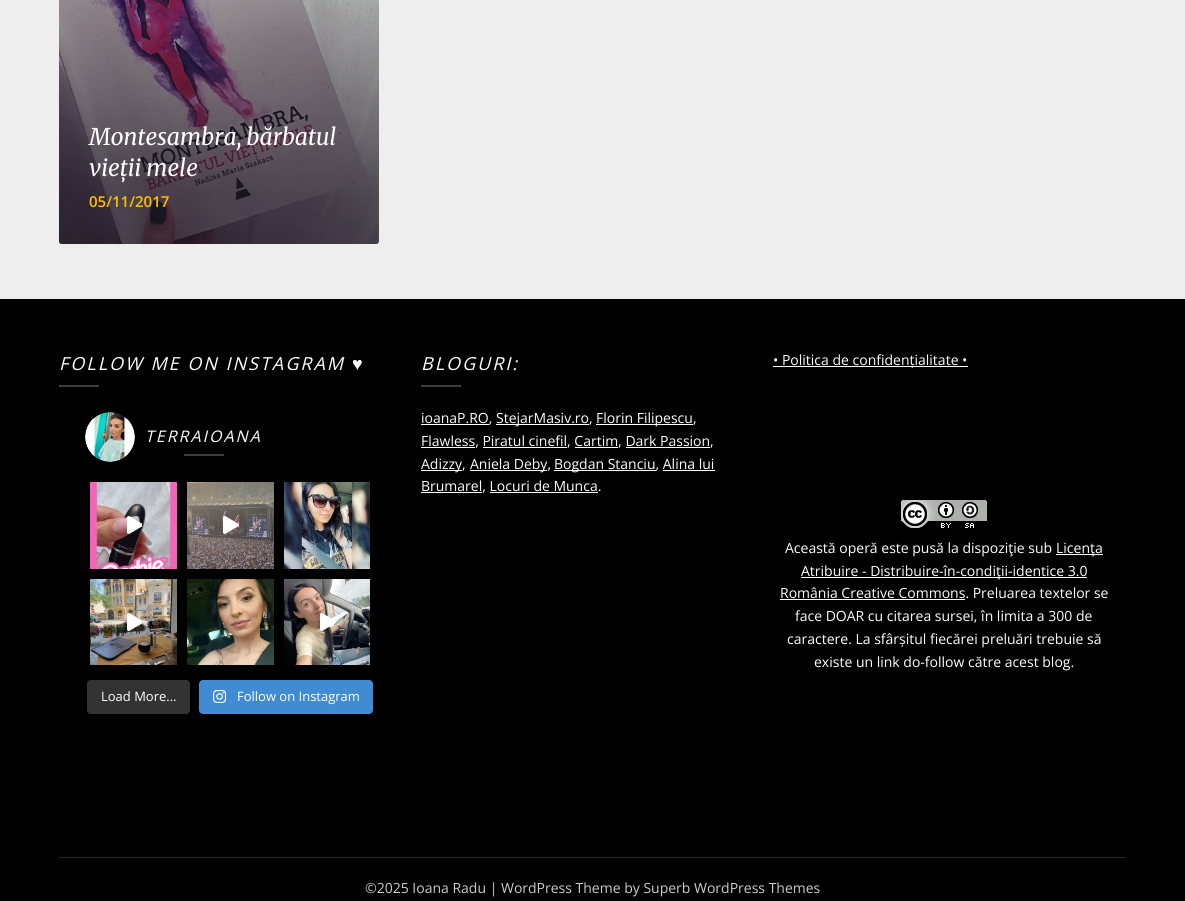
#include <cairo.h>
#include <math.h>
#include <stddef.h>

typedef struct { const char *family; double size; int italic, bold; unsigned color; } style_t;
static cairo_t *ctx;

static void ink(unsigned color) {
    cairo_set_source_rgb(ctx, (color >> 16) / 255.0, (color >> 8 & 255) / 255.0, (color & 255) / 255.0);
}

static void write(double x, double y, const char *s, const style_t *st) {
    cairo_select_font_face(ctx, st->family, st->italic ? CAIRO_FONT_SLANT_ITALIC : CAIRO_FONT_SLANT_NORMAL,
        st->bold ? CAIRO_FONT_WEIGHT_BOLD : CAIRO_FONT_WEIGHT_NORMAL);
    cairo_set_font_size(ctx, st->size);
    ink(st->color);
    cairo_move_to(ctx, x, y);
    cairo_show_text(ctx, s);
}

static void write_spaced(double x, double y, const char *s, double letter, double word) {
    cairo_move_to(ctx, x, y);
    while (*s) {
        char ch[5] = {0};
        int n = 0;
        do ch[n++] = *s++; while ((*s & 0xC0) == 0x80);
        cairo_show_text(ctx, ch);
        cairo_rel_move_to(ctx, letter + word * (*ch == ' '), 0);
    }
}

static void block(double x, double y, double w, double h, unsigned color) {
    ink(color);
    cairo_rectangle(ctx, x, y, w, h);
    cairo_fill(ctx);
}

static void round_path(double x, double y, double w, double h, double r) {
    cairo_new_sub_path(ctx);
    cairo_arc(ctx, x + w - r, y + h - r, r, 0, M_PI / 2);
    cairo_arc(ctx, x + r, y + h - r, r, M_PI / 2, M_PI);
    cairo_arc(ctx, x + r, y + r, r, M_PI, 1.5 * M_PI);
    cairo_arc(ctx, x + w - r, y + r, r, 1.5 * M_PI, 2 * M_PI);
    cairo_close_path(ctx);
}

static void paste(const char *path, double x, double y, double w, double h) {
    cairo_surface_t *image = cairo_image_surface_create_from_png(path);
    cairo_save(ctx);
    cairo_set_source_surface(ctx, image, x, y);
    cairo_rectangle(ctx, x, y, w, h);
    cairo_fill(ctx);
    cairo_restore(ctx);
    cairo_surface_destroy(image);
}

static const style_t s1 = {"Merriweather Light", 23, 1, 0, 0xffffff};
static const style_t s2 = {"Open Sans SemiBold", 15, 0, 0, 0xffbf00};
static const style_t s3 = {"Open Sans", 13, 0, 0, 0xffffff};
static const style_t s4 = {"Open Sans", 14, 0, 0, 0xffffff};
static const style_t s5 = {"Open Sans", 14, 0, 0, 0xcccccc};

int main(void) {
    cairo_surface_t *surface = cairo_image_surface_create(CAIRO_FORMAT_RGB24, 1185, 901);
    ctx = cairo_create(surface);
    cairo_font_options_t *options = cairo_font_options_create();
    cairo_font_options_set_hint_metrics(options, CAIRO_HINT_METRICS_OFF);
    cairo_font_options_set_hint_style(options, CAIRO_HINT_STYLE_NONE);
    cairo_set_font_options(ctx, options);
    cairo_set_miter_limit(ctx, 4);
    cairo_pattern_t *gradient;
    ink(0xeeeeee);
    cairo_paint(ctx);
    paste("pic1.png", 59, 0, 320, 244);
    gradient = cairo_pattern_create_linear(219, -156, 219, 244);
    cairo_pattern_add_color_stop_rgba(gradient, 0, 0.125, 0.118, 0.173, 0);
    cairo_pattern_add_color_stop_rgba(gradient, 0.88, 0.125, 0.118, 0.173, 0.64);
    cairo_pattern_add_color_stop_rgba(gradient, 0.89, 0.125, 0.118, 0.173, 0.65);
    cairo_set_source(ctx, gradient);
    cairo_pattern_destroy(gradient);
    round_path(59, -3, 320, 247, 3);
    cairo_fill(ctx);
    write(89, 145, "Montesambra, bărbatul", &s1);
    write(89, 176, "vieții mele", &s1);
    write(89, 207, "05/11/2017", &s2);
    block(0, 299, 1185, 602, 0x000000);
    cairo_select_font_face(ctx, "Open Sans", CAIRO_FONT_SLANT_ITALIC, CAIRO_FONT_WEIGHT_NORMAL);
    cairo_set_font_size(ctx, 18);
    ink(0xffffff);
    write_spaced(59, 370, "FOLLOW ME ON INSTAGRAM", 2, 0);
    cairo_select_font_face(ctx, "Liberation Serif", CAIRO_FONT_SLANT_ITALIC, CAIRO_FONT_WEIGHT_NORMAL);
    write_spaced(352, 370, "♥", 2, 0);
    block(59, 385, 40, 2, 0x3d3d3d);
    paste("pic2.png", 85, 412, 50, 50);
    cairo_select_font_face(ctx, "Open Sans", CAIRO_FONT_SLANT_ITALIC, CAIRO_FONT_WEIGHT_NORMAL);
    cairo_set_font_size(ctx, 16);
    ink(0xffffff);
    write_spaced(145, 442, "TERRAIOANA", 2, 0);
    block(184, 454, 40, 2, 0x3d3d3d);
    paste("pic3.png", 90, 482, 87, 87);
    paste("pic4.png", 127, 516, 15, 18);
    paste("pic5.png", 187, 482, 87, 87);
    paste("pic6.png", 223, 516, 16, 18);
    paste("pic7.png", 284, 482, 86, 87);
    paste("pic8.png", 90, 579, 87, 86);
    paste("pic9.png", 127, 613, 15, 18);
    paste("pic10.png", 187, 579, 87, 86);
    paste("pic11.png", 284, 579, 86, 86);
    paste("pic12.png", 320, 613, 16, 18);
    ink(0x333333);
    round_path(87, 680, 103, 34, 4);
    cairo_fill(ctx);
    write(101, 701, "Load More...", &s3);
    ink(0x408bd1);
    round_path(199, 680, 174, 34, 4);
    cairo_fill(ctx);
    paste("pic13.png", 213, 690, 13, 13);
    write(237, 701, "Follow on Instagram", &s3);
    cairo_select_font_face(ctx, "Open Sans", CAIRO_FONT_SLANT_ITALIC, CAIRO_FONT_WEIGHT_NORMAL);
    cairo_set_font_size(ctx, 18);
    write_spaced(421, 370, "BLOGURI:", 2, 0);
    block(421, 385, 40, 2, 0x3d3d3d);
    block(421, 424, 68, 1, 0xffffff);
    write(421, 423, "ioanaP.RO,", &s4);
    block(496, 424, 93, 1, 0xffffff);
    write(496, 423, "StejarMasiv.ro,", &s4);
    block(596, 424, 97, 1, 0xffffff);
    write(596, 423, "Florin Filipescu,", &s4);
    block(421, 447, 54, 1, 0xffffff);
    write(421, 446, "Flawless, Piratul cinefil, Cartim, Dark Passion,", &s4);
    block(483, 447, 84, 1, 0xffffff);
    block(575, 447, 43, 1, 0xffffff);
    block(626, 447, 84, 1, 0xffffff);
    block(421, 470, 41, 1, 0xffffff);
    write(421, 469, "Adizzy,", &s4);
    block(470, 470, 77, 1, 0xffffff);
    write(470, 469, "Aniela Deby,", &s4);
    block(554, 470, 102, 1, 0xffffff);
    write(554, 469, "Bogdan Stanciu, Alina lui", &s4);
    block(421, 492, 61, 1, 0xffffff);
    write(421, 491, "Brumarel, Locuri de Munca.", &s4);
    block(663, 470, 52, 1, 0xffffff);
    block(490, 492, 108, 1, 0xffffff);
    block(773, 366, 195, 1, 0xffffff);
    write(773, 365, "• Politica de confidențialitate •", &s4);
    paste("pic14.png", 900, 499, 87, 31);
    write(785, 553, "Această operă este pusă la dispoziţie sub", &s4);
    block(1056, 554, 47, 1, 0xffffff);
    write(1056, 553, "Licenţa", &s4);
    block(801, 577, 286, 1, 0xffffff);
    write(801, 576, "Atribuire - Distribuire-în-condiţii-identice 3.0", &s4);
    write(780, 598, "România Creative Commons. Preluarea textelor se", &s4);
    block(780, 599, 185, 1, 0xffffff);
    write(795, 621, "face DOAR cu citarea sursei, în limita a 300 de", &s4);
    write(787, 644, "caractere. La sfârșitul fiecărei preluări trebuie să", &s4);
    write(814, 667, "existe un link do-follow către acest blog.", &s4);
    block(59, 857, 1067, 1, 0x292929);
    write(365, 893, "©2025 Ioana Radu | WordPress Theme by Superb WordPress Themes", &s5);
    cairo_surface_write_to_png(surface, "screenshot.png");
    cairo_font_options_destroy(options);
    cairo_destroy(ctx);
    cairo_surface_destroy(surface);
    return 0;
}
